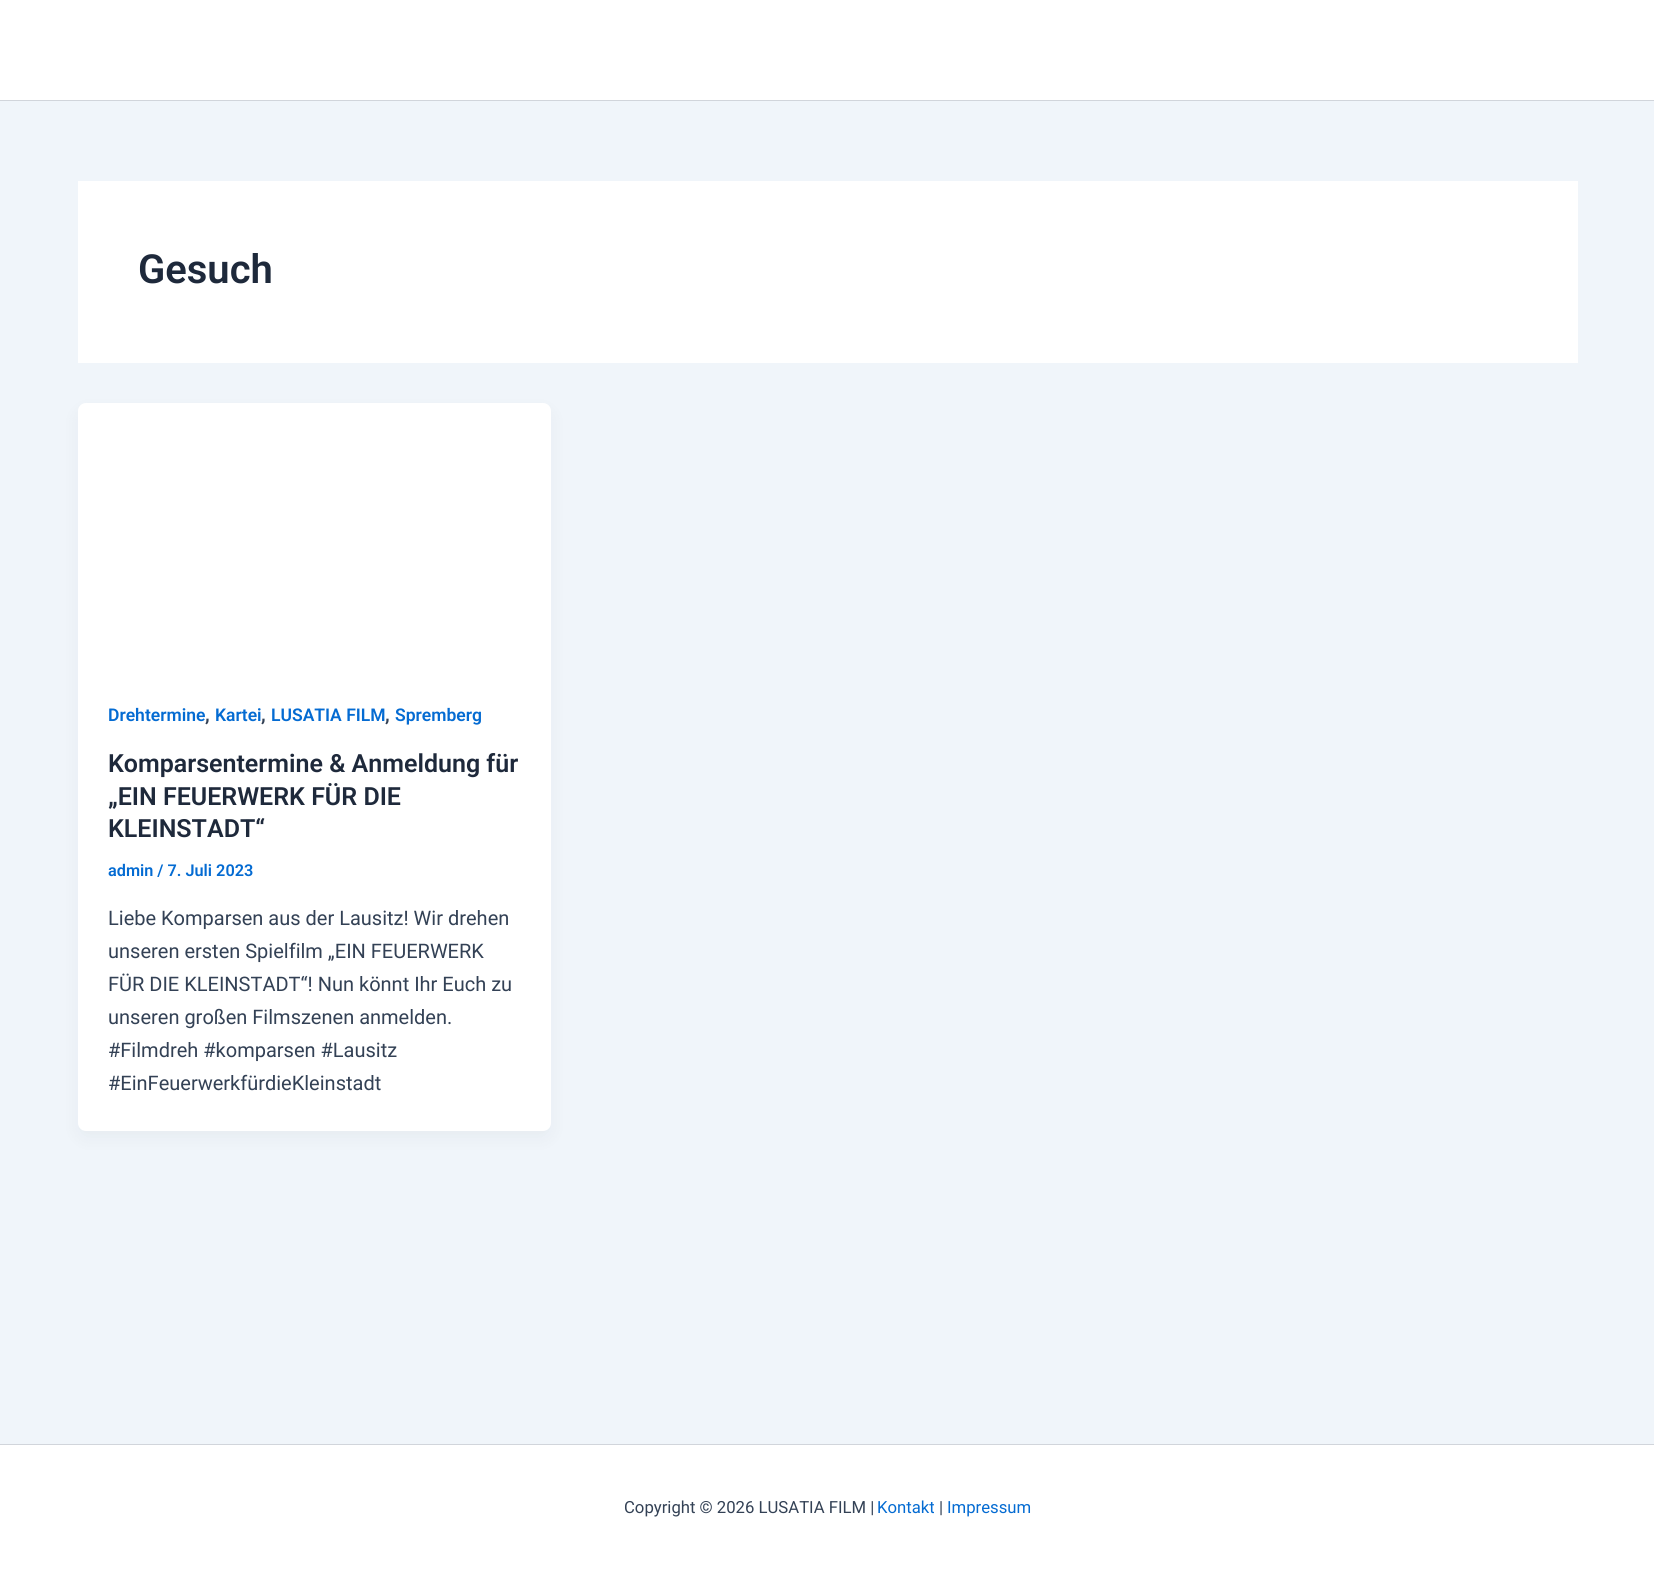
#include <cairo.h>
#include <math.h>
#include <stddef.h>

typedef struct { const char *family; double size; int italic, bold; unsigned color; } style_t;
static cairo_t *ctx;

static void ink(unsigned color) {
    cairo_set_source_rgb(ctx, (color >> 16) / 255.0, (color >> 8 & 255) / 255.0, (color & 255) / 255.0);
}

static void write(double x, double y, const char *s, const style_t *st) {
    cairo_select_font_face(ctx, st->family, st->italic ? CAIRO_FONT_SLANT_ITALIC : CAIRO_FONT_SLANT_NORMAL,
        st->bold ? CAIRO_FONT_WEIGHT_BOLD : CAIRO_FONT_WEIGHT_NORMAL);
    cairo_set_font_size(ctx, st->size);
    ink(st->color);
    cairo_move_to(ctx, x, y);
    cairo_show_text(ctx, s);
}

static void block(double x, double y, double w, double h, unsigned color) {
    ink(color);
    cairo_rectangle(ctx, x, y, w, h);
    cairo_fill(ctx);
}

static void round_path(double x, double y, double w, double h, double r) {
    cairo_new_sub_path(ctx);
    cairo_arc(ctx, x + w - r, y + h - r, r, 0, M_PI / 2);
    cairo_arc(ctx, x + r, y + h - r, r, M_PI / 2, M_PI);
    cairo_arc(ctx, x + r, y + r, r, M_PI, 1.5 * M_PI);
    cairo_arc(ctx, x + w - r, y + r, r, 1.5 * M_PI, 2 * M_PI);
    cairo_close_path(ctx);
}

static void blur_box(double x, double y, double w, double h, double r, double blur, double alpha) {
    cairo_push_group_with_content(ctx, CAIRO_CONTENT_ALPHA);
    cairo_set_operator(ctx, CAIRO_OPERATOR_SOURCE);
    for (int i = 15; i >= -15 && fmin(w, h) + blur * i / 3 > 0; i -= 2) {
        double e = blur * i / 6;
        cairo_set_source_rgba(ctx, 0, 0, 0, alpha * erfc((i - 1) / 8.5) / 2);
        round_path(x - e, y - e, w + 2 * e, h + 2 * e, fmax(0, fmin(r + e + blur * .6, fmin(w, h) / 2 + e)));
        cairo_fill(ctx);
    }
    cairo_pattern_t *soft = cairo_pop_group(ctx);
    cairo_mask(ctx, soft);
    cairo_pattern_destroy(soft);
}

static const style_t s1 = {"Roboto SemiBold", 40, 0, 0, 0x1e293b};
static const style_t s2 = {"Roboto SemiBold", 17.5, 0, 0, 0x046bd2};
static const style_t s3 = {"Roboto SemiBold", 20, 0, 0, 0x334155};
static const style_t s4 = {"Roboto SemiBold", 25, 0, 0, 0x1e293b};
static const style_t s5 = {"Roboto SemiBold", 16.25, 0, 0, 0x046bd2};
static const style_t s6 = {"Roboto", 20, 0, 0, 0x334155};
static const style_t s7 = {"Roboto", 16.7, 0, 0, 0x334155};
static const style_t s8 = {"Roboto", 16.7, 0, 0, 0x046bd2};

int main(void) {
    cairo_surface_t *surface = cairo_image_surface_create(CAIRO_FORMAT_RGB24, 1654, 1569);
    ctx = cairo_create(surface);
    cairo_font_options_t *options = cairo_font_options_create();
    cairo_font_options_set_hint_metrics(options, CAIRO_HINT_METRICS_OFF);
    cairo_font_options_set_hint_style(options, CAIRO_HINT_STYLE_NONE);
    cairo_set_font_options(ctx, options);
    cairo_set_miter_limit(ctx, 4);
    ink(0xf0f5fa);
    cairo_paint(ctx);
    block(0, 0, 1654, 100, 0xffffff);
    block(0, 100, 1654, 1, 0xd1d5db);
    block(78, 181, 1500, 182, 0xffffff);
    write(138, 283, "Gesuch", &s1);
    ink(0x101828);
    blur_box(80, 413, 469, 723, 5, 9.5, 0.05);
    ink(0xffffff);
    round_path(78, 403, 473, 728, 8);
    cairo_fill(ctx);
    write(108, 721, "Drehtermine", &s2);
    write(205, 721, ",", &s3);
    write(215, 721, "Kartei", &s2);
    write(261, 721, ",", &s3);
    write(271, 721, "LUSATIA FILM", &s2);
    write(385, 721, ",", &s3);
    write(395, 721, "Spremberg", &s2);
    write(108, 772, "Komparsentermine & Anmeldung für", &s4);
    write(108, 805, "„EIN FEUERWERK FÜR DIE", &s4);
    write(108, 837, "KLEINSTADT“", &s4);
    write(108, 876, "admin / 7. Juli 2023", &s5);
    write(108, 925, "Liebe Komparsen aus der Lausitz! Wir drehen", &s6);
    write(108, 958, "unseren ersten Spielfilm „EIN FEUERWERK", &s6);
    write(108, 991, "FÜR DIE KLEINSTADT“! Nun könnt Ihr Euch zu", &s6);
    write(108, 1024, "unseren großen Filmszenen anmelden.", &s6);
    write(108, 1057, "#Filmdreh #komparsen #Lausitz", &s6);
    write(108, 1090, "#EinFeuerwerkfürdieKleinstadt", &s6);
    block(0, 1445, 1654, 124, 0xffffff);
    block(0, 1444, 1654, 1, 0xd1d5db);
    write(624, 1513, "Copyright © 2026 LUSATIA FILM |", &s7);
    write(877, 1513, "Kontakt", &s8);
    write(939, 1513, "|", &s7);
    write(947, 1513, "Impressum", &s8);
    cairo_surface_write_to_png(surface, "screenshot.png");
    cairo_font_options_destroy(options);
    cairo_destroy(ctx);
    cairo_surface_destroy(surface);
    return 0;
}
